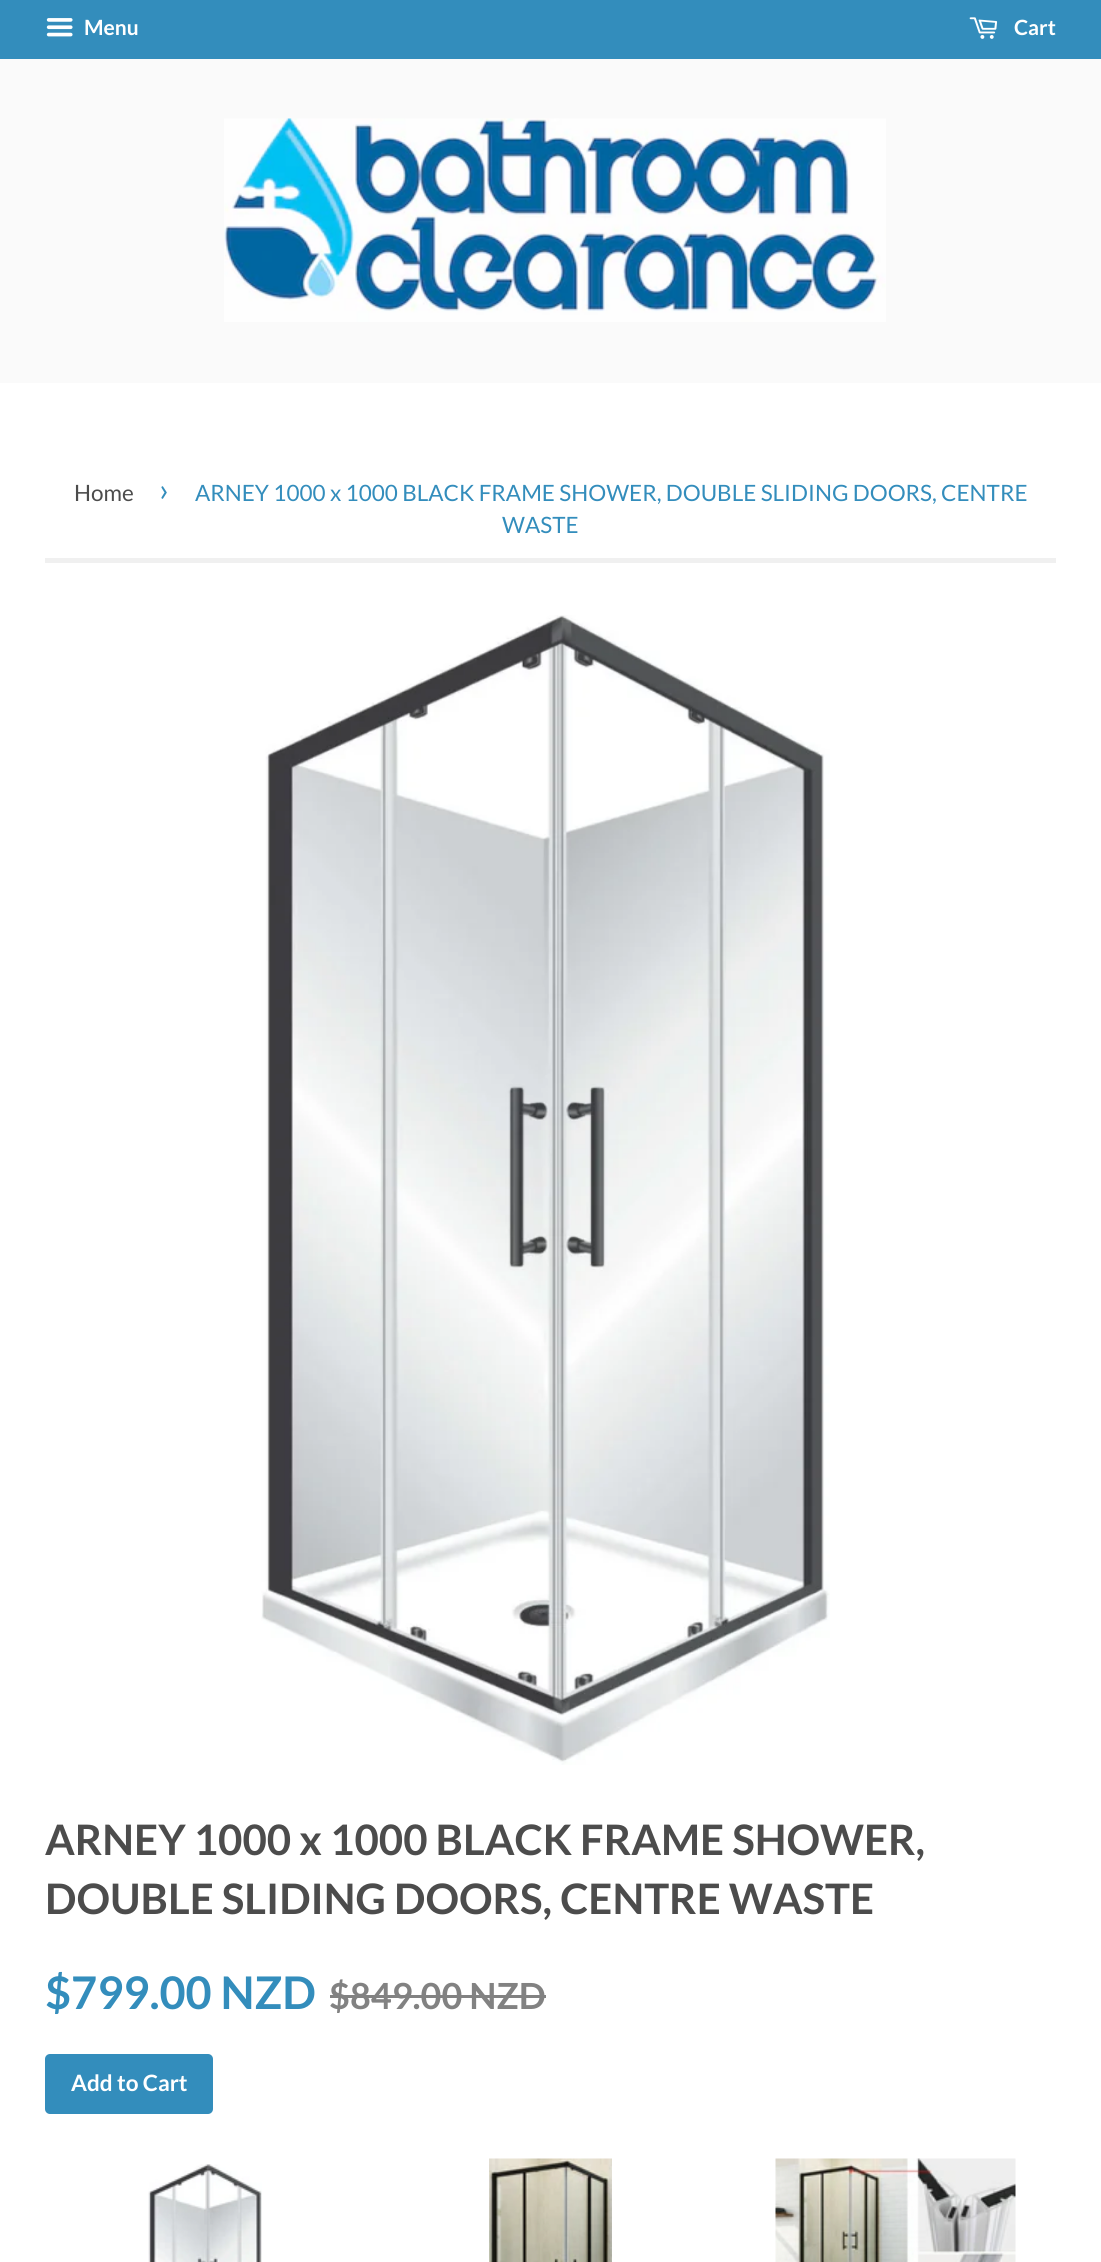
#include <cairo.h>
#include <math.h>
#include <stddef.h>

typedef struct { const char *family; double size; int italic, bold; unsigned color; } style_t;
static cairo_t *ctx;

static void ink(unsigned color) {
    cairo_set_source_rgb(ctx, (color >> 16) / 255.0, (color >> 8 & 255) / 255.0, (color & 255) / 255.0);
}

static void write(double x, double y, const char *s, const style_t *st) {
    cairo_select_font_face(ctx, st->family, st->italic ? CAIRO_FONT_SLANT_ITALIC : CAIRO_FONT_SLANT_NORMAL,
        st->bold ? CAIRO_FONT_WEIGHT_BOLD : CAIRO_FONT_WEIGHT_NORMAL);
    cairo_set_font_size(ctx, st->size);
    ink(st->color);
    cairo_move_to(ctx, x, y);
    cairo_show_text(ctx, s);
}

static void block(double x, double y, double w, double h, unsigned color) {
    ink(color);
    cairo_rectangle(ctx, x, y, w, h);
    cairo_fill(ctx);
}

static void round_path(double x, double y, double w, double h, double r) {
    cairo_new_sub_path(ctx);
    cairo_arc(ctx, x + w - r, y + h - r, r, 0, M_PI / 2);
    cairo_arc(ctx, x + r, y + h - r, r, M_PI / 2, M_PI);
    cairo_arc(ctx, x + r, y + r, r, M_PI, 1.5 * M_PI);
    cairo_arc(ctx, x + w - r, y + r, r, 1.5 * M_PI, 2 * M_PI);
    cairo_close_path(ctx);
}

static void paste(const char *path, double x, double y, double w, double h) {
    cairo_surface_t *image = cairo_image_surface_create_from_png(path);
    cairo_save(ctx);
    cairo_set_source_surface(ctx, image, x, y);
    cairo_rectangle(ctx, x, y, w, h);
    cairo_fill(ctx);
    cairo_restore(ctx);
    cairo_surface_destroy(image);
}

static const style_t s1 = {"Lato", 21, 0, 1, 0xffffff};
static const style_t s2 = {"Lato", 22.5, 0, 0, 0x4c4c4c};
static const style_t s3 = {"Lato", 32, 0, 0, 0x338dbc};
static const style_t s4 = {"Lato", 22.5, 0, 0, 0x338dbc};
static const style_t s5 = {"Lato", 42, 0, 1, 0x4c4c4c};
static const style_t s6 = {"Lato", 45, 0, 1, 0x338dbc};
static const style_t s7 = {"Lato", 36, 0, 1, 0x828282};
static const style_t s8 = {"Lato", 22.5, 0, 1, 0xffffff};

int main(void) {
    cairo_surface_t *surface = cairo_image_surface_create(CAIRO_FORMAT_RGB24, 1101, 2262);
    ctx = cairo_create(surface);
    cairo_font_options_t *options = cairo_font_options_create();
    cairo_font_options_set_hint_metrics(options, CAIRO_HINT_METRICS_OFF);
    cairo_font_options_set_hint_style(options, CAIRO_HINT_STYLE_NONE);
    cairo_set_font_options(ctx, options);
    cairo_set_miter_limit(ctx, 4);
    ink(0xffffff);
    cairo_paint(ctx);
    block(0, 0, 1101, 59, 0x338dbc);
    paste("pic1.png", 46, 18, 27, 19);
    write(84, 35, "Menu", &s1);
    paste("pic2.png", 969, 17, 29, 22);
    write(1014, 35, "Cart", &s1);
    block(0, 59, 1101, 324, 0xfafafa);
    paste("pic3.png", 224, 118, 662, 204);
    block(45, 558, 1011, 5, 0xf0f0f0);
    write(74, 501, "Home", &s2);
    write(159, 501, "›", &s3);
    write(195, 501, "ARNEY 1000 x 1000 BLACK FRAME SHOWER, DOUBLE SLIDING DOORS, CENTRE", &s4);
    write(502, 533, "WASTE", &s4);
    paste("pic4.png", 261, 615, 569, 1150);
    write(45, 1855, "ARNEY 1000 x 1000 BLACK FRAME SHOWER,", &s5);
    write(45, 1914, "DOUBLE SLIDING DOORS, CENTRE WASTE", &s5);
    write(45, 2009, "$799.00 NZD", &s6);
    write(329, 2009, "$849.00 NZD", &s7);
    block(330, 1995, 216, 3, 0x828282);
    ink(0x338dbc);
    round_path(45, 2054, 168, 60, 5);
    cairo_fill(ctx);
    write(71, 2091, "Add to Cart", &s8);
    paste("pic5.png", 148, 2164, 114, 98);
    paste("pic6.png", 489, 2158, 123, 104);
    paste("pic7.png", 775, 2158, 241, 104);
    cairo_surface_write_to_png(surface, "screenshot.png");
    cairo_font_options_destroy(options);
    cairo_destroy(ctx);
    cairo_surface_destroy(surface);
    return 0;
}
